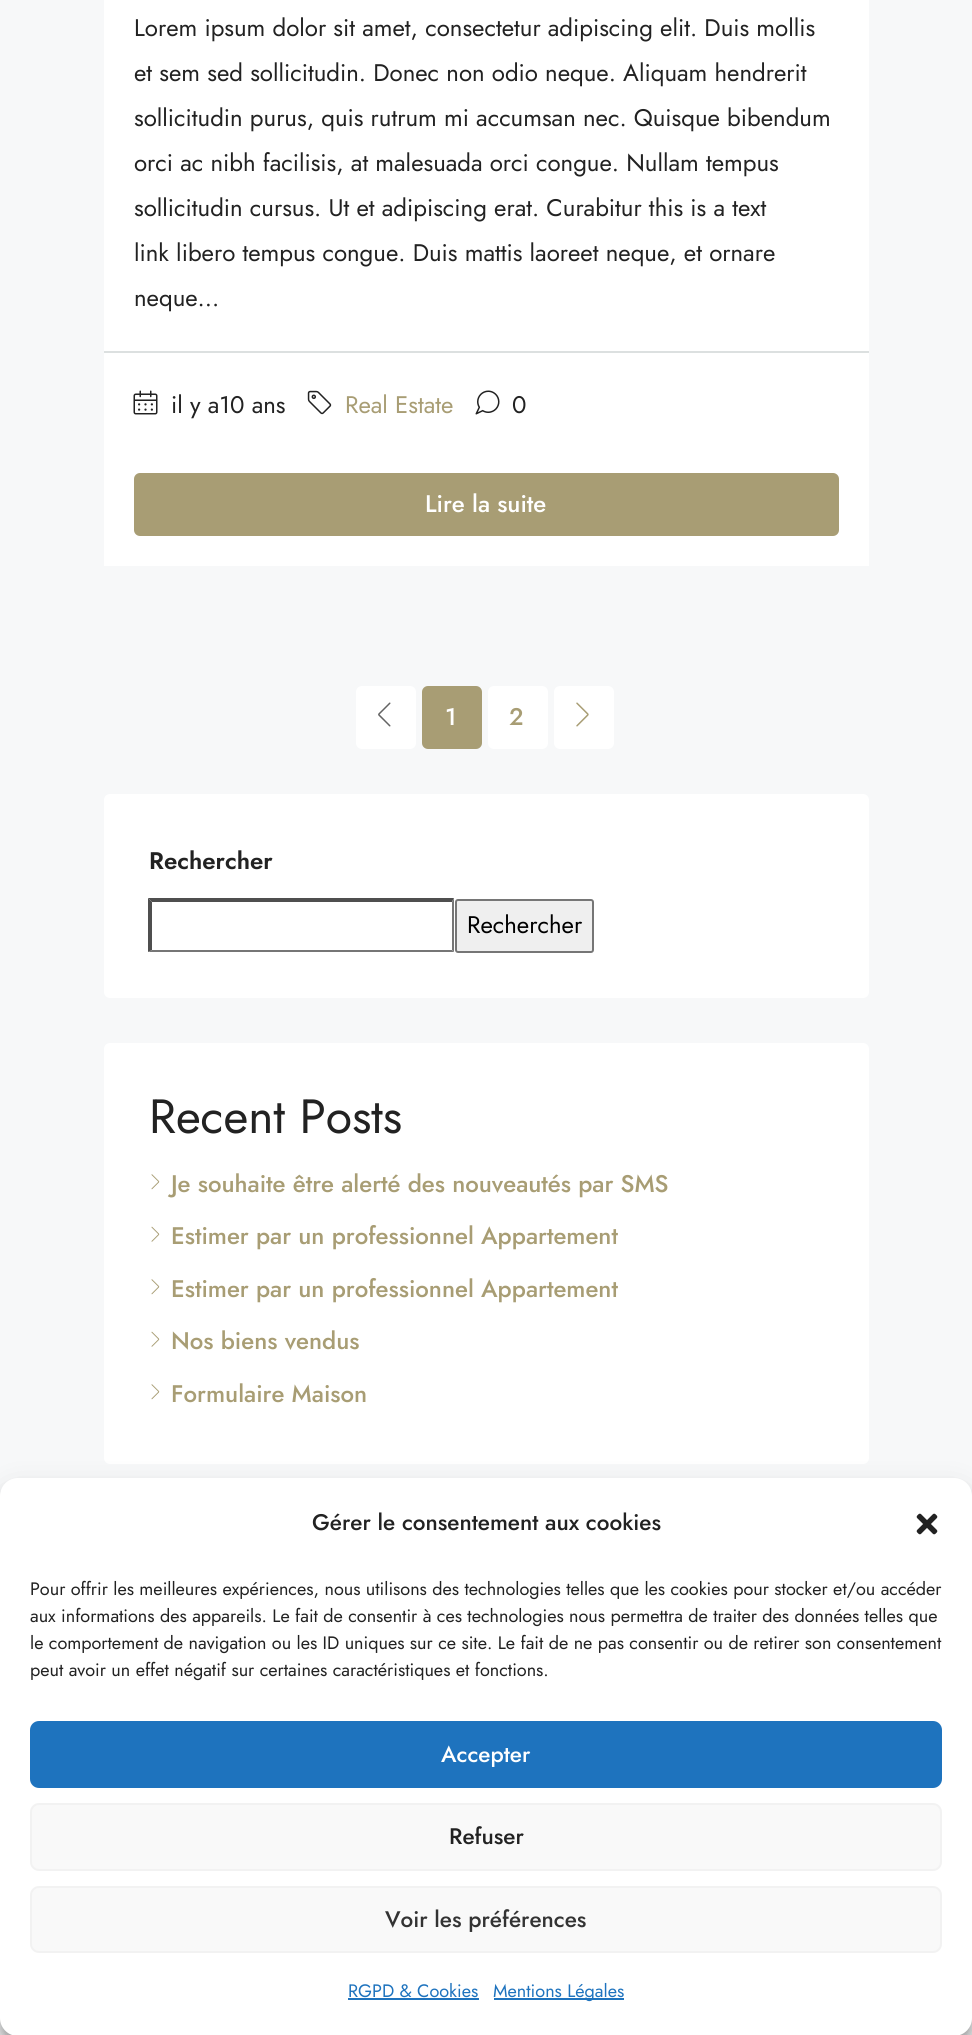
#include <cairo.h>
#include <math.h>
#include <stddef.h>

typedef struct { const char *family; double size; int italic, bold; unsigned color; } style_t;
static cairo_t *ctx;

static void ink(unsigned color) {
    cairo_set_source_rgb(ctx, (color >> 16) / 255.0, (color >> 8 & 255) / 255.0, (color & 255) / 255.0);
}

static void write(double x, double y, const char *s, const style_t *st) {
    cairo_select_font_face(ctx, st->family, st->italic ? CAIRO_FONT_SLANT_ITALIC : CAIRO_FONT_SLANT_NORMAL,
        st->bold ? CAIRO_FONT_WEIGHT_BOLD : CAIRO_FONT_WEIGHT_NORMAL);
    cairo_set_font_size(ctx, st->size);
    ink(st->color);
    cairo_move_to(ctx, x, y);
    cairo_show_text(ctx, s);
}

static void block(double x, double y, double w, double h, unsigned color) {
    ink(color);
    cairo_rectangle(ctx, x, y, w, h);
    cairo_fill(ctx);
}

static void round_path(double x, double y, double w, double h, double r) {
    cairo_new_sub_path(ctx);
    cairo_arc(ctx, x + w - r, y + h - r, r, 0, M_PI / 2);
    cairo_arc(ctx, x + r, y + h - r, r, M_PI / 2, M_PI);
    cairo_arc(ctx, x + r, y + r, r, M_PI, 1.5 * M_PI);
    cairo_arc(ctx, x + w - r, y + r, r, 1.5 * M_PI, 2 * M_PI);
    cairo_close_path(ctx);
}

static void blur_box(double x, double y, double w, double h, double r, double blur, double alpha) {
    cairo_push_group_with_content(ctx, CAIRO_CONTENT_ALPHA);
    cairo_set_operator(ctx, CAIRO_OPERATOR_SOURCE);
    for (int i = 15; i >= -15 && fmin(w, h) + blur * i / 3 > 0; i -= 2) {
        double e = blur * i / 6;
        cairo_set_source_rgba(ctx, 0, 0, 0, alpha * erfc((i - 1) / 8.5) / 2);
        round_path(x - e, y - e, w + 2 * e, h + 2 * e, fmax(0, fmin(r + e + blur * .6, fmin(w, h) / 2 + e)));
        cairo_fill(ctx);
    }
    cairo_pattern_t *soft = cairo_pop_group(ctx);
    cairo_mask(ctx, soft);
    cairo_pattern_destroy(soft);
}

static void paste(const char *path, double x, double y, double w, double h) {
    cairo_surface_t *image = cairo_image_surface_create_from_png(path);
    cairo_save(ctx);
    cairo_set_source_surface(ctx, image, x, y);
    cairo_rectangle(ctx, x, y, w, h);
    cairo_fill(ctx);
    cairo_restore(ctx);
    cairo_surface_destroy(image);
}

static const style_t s1 = {"Jost", 24, 0, 0, 0x222222};
static const style_t s2 = {"Jost", 24, 0, 0, 0xa89d74};
static const style_t s3 = {"Jost Medium", 24, 0, 0, 0xffffff};
static const style_t s4 = {"Jost Medium", 24, 0, 0, 0xa89d74};
static const style_t s5 = {"Jost SemiBold", 24, 0, 0, 0x222222};
static const style_t s6 = {"Jost", 24, 0, 0, 0x000000};
static const style_t s7 = {"Jost", 48, 0, 0, 0x222222};
static const style_t s8 = {"Jost Medium", 22.5, 0, 0, 0x222222};
static const style_t s9 = {"Jost", 18, 0, 0, 0x222222};
static const style_t s10 = {"Jost Medium", 22.5, 0, 0, 0xffffff};
static const style_t s11 = {"Jost Medium", 22.5, 0, 0, 0x333333};
static const style_t s12 = {"Jost", 18, 0, 0, 0x1e73be};

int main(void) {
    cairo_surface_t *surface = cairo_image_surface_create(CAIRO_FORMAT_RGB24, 972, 2035);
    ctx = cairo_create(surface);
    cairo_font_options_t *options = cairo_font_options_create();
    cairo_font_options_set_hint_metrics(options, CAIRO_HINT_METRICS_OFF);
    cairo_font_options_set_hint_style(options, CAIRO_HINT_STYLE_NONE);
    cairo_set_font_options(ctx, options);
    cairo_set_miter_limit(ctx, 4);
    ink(0xf7f8f9);
    cairo_paint(ctx);
    block(104, 0, 765, 566, 0xffffff);
    write(134, 36, "Lorem ipsum dolor sit amet, consectetur adipiscing elit. Duis mollis", &s1);
    write(134, 81, "et sem sed sollicitudin. Donec non odio neque. Aliquam hendrerit", &s1);
    write(134, 126, "sollicitudin purus, quis rutrum mi accumsan nec. Quisque bibendum", &s1);
    write(134, 171, "orci ac nibh facilisis, at malesuada orci congue. Nullam tempus", &s1);
    write(134, 216, "sollicitudin cursus. Ut et adipiscing erat. Curabitur this is a text", &s1);
    write(134, 261, "link libero tempus congue. Duis mattis laoreet neque, et ornare", &s1);
    write(134, 306, "neque...", &s1);
    block(104, 351, 765, 2, 0xdce0e0);
    paste("pic1.png", 133, 390, 25, 25);
    write(171, 413, "il y a10 ans", &s1);
    paste("pic2.png", 307, 390, 25, 25);
    write(345, 413, "Real Estate", &s2);
    paste("pic3.png", 475, 390, 25, 25);
    write(512, 413, "0", &s1);
    ink(0xa89d74);
    round_path(135, 474, 703, 61, 5);
    cairo_fill_preserve(ctx);
    cairo_stroke(ctx);
    write(425, 512, "Lire la suite", &s3);
    round_path(356, 686, 60, 63, 6);
    cairo_fill(ctx);
    paste("pic4.png", 378, 702, 13, 25);
    ink(0xa89d74);
    round_path(423, 687, 58, 61, 5);
    cairo_fill_preserve(ctx);
    cairo_stroke(ctx);
    write(445, 725, "1", &s3);
    round_path(488, 686, 60, 63, 6);
    cairo_fill(ctx);
    write(509, 725, "2", &s4);
    ink(0xffffff);
    round_path(554, 686, 60, 63, 6);
    cairo_fill(ctx);
    paste("pic5.png", 576, 702, 13, 25);
    round_path(104, 794, 765, 204, 6);
    cairo_fill(ctx);
    write(149, 869, "Rechercher", &s5);
    ink(0x4f4f4f);
    cairo_new_path(ctx);
    cairo_move_to(ctx, 148, 898);
    cairo_line_to(ctx, 454, 898);
    cairo_line_to(ctx, 452, 902);
    cairo_line_to(ctx, 152, 902);
    cairo_close_path(ctx);
    cairo_fill(ctx);
    ink(0x767676);
    cairo_new_path(ctx);
    cairo_move_to(ctx, 454, 898);
    cairo_line_to(ctx, 454, 952);
    cairo_line_to(ctx, 452, 950);
    cairo_line_to(ctx, 452, 902);
    cairo_close_path(ctx);
    cairo_fill(ctx);
    cairo_new_path(ctx);
    cairo_move_to(ctx, 454, 952);
    cairo_line_to(ctx, 148, 952);
    cairo_line_to(ctx, 152, 950);
    cairo_line_to(ctx, 452, 950);
    cairo_close_path(ctx);
    cairo_fill(ctx);
    ink(0x4f4f4f);
    cairo_new_path(ctx);
    cairo_move_to(ctx, 148, 952);
    cairo_line_to(ctx, 148, 898);
    cairo_line_to(ctx, 152, 902);
    cairo_line_to(ctx, 152, 950);
    cairo_close_path(ctx);
    cairo_fill(ctx);
    ink(0xefefef);
    round_path(456, 900, 137, 52, 2);
    cairo_fill_preserve(ctx);
    ink(0x767676);
    cairo_stroke(ctx);
    write(467, 933, "Rechercher", &s6);
    ink(0xffffff);
    round_path(104, 1043, 765, 421, 6);
    cairo_fill(ctx);
    write(149, 1133, "Recent Posts", &s7);
    paste("pic6.png", 151, 1174, 9, 16);
    write(171, 1192, "Je souhaite être alerté des nouveautés par SMS", &s4);
    paste("pic7.png", 151, 1226, 9, 16);
    write(171, 1244, "Estimer par un professionnel Appartement", &s4);
    paste("pic6.png", 151, 1279, 9, 16);
    write(171, 1297, "Estimer par un professionnel Appartement", &s4);
    paste("pic7.png", 151, 1331, 9, 16);
    write(171, 1349, "Nos biens vendus", &s4);
    paste("pic6.png", 151, 1384, 9, 16);
    write(171, 1402, "Formulaire Maison", &s4);
    ink(0x000000);
    blur_box(0, 1487, 972, 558, 18, 4.5, 0.23);
    blur_box(0, 1493, 972, 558, 18, 15, 0.19);
    ink(0xffffff);
    round_path(0, 1478, 972, 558, 18);
    cairo_fill(ctx);
    write(312, 1530, "Gérer le consentement aux cookies", &s8);
    paste("pic8.png", 916, 1513, 22, 22);
    write(30, 1595, "Pour offrir les meilleures expériences, nous utilisons des technologies telles que les cookies pour stocker et/ou accéder", &s9);
    write(30, 1622, "aux informations des appareils. Le fait de consentir à ces technologies nous permettra de traiter des données telles que", &s9);
    write(30, 1649, "le comportement de navigation ou les ID uniques sur ce site. Le fait de ne pas consentir ou de retirer son consentement", &s9);
    write(30, 1676, "peut avoir un effet négatif sur certaines caractéristiques et fonctions.", &s9);
    ink(0x1e73be);
    round_path(31, 1722, 910, 65, 8);
    cairo_fill_preserve(ctx);
    cairo_stroke(ctx);
    write(441, 1762, "Accepter", &s10);
    ink(0xf9f9f9);
    round_path(31, 1804, 910, 66, 8);
    cairo_fill_preserve(ctx);
    ink(0xf2f2f2);
    cairo_stroke(ctx);
    write(449, 1844, "Refuser", &s8);
    ink(0xf9f9f9);
    round_path(31, 1887, 910, 65, 8);
    cairo_fill_preserve(ctx);
    ink(0xf2f2f2);
    cairo_stroke(ctx);
    write(385, 1927, "Voir les préférences", &s11);
    write(348, 1997, "RGPD & Cookies", &s12);
    block(348, 1998, 131, 2, 0x1e73be);
    block(494, 1998, 130, 2, 0x1e73be);
    write(493, 1997, "Mentions Légales", &s12);
    cairo_surface_write_to_png(surface, "screenshot.png");
    cairo_font_options_destroy(options);
    cairo_destroy(ctx);
    cairo_surface_destroy(surface);
    return 0;
}
